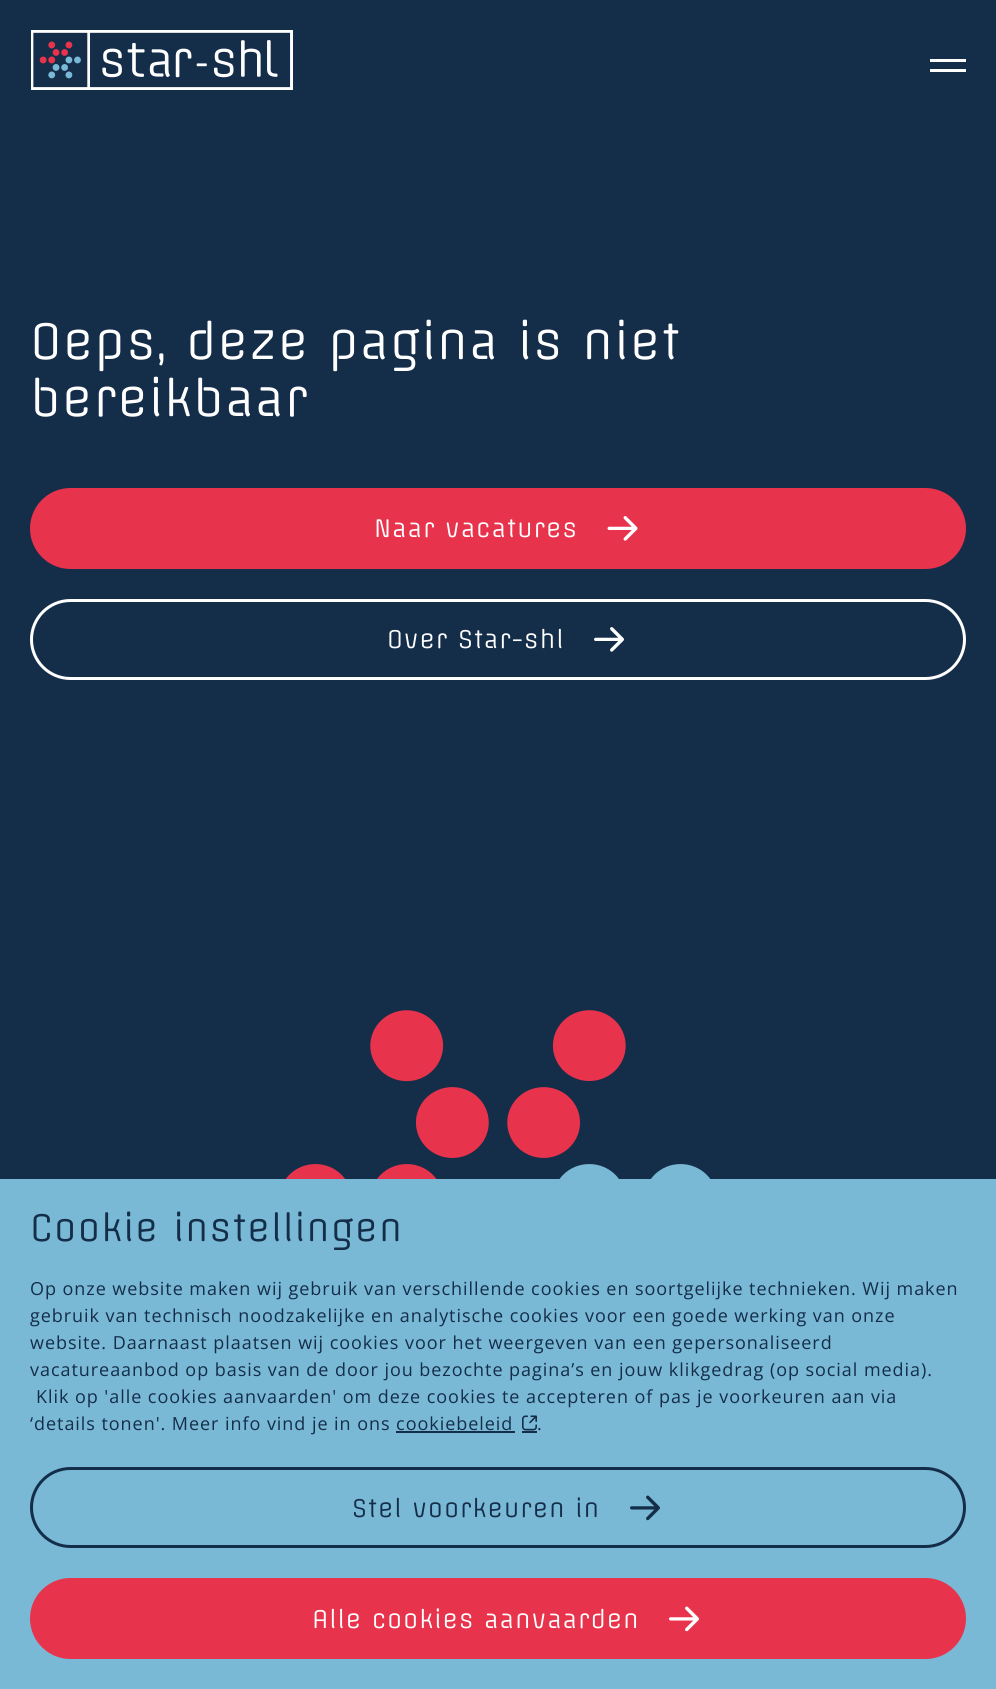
#include <cairo.h>
#include <math.h>
#include <stddef.h>

static cairo_t *ctx;

static void ink(unsigned color) {
    cairo_set_source_rgb(ctx, (color >> 16) / 255.0, (color >> 8 & 255) / 255.0, (color & 255) / 255.0);
}

static void write_spaced(double x, double y, const char *s, double letter, double word) {
    cairo_move_to(ctx, x, y);
    while (*s) {
        char ch[5] = {0};
        int n = 0;
        do ch[n++] = *s++; while ((*s & 0xC0) == 0x80);
        cairo_show_text(ctx, ch);
        cairo_rel_move_to(ctx, letter + word * (*ch == ' '), 0);
    }
}

static void block(double x, double y, double w, double h, unsigned color) {
    ink(color);
    cairo_rectangle(ctx, x, y, w, h);
    cairo_fill(ctx);
}

static void round_path(double x, double y, double w, double h, double r) {
    cairo_new_sub_path(ctx);
    cairo_arc(ctx, x + w - r, y + h - r, r, 0, M_PI / 2);
    cairo_arc(ctx, x + r, y + h - r, r, M_PI / 2, M_PI);
    cairo_arc(ctx, x + r, y + r, r, M_PI, 1.5 * M_PI);
    cairo_arc(ctx, x + w - r, y + r, r, 1.5 * M_PI, 2 * M_PI);
    cairo_close_path(ctx);
}

static void paste(const char *path, double x, double y, double w, double h) {
    cairo_surface_t *image = cairo_image_surface_create_from_png(path);
    cairo_save(ctx);
    cairo_set_source_surface(ctx, image, x, y);
    cairo_rectangle(ctx, x, y, w, h);
    cairo_fill(ctx);
    cairo_restore(ctx);
    cairo_surface_destroy(image);
}

int main(void) {
    cairo_surface_t *surface = cairo_image_surface_create(CAIRO_FORMAT_RGB24, 996, 1689);
    ctx = cairo_create(surface);
    cairo_font_options_t *options = cairo_font_options_create();
    cairo_font_options_set_hint_metrics(options, CAIRO_HINT_METRICS_OFF);
    cairo_font_options_set_hint_style(options, CAIRO_HINT_STYLE_NONE);
    cairo_set_font_options(ctx, options);
    cairo_set_miter_limit(ctx, 4);
    ink(0x142d49);
    cairo_paint(ctx);
    paste("pic1.png", 31, 30, 262, 60);
    block(930, 59, 36, 3, 0xffffff);
    block(930, 69, 36, 3, 0xffffff);
    cairo_select_font_face(ctx, "Offside", CAIRO_FONT_SLANT_NORMAL, CAIRO_FONT_WEIGHT_NORMAL);
    cairo_set_font_size(ctx, 48);
    write_spaced(30, 359, "Oeps, deze pagina is niet", 0.95, 0);
    write_spaced(30, 416, "bereikbaar", 0.95, 0);
    ink(0xe7334c);
    round_path(31.5, 489.5, 933, 78, 39);
    cairo_fill_preserve(ctx);
    cairo_set_line_width(ctx, 3);
    cairo_stroke(ctx);
    cairo_set_font_size(ctx, 24);
    ink(0xffffff);
    write_spaced(374, 537, "Naar vacatures", 0.95, 0);
    paste("pic2.png", 607, 516, 31, 25);
    round_path(31.5, 600.5, 933, 78, 39);
    cairo_stroke(ctx);
    write_spaced(387, 648, "Over Star-shl", 0.95, 0);
    paste("pic3.png", 594, 627, 30, 25);
    paste("pic4.png", 285, 1010, 426, 169);
    block(0, 1179, 996, 510, 0x79b9d5);
    cairo_set_font_size(ctx, 36);
    ink(0x142d49);
    write_spaced(30, 1241, "Cookie instellingen", 0.95, 0);
    cairo_select_font_face(ctx, "Open Sans", CAIRO_FONT_SLANT_NORMAL, CAIRO_FONT_WEIGHT_NORMAL);
    cairo_set_font_size(ctx, 18);
    write_spaced(30, 1295, "Op onze website maken wij gebruik van verschillende cookies en soortgelijke technieken. Wij maken", 0.95, 0);
    write_spaced(30, 1322, "gebruik van technisch noodzakelijke en analytische cookies voor een goede werking van onze", 0.95, 0);
    write_spaced(30, 1349, "website. Daarnaast plaatsen wij cookies voor het weergeven van een gepersonaliseerd", 0.95, 0);
    write_spaced(30, 1376, "vacatureaanbod op basis van de door jou bezochte pagina’s en jouw klikgedrag (op social media).", 0.95, 0);
    write_spaced(36, 1403, "Klik op 'alle cookies aanvaarden' om deze cookies te accepteren of pas je voorkeuren aan via", 0.95, 0);
    write_spaced(30, 1430, "‘details tonen'. Meer info vind je in ons cookiebeleid", 0.95, 0);
    paste("pic5.png", 522, 1415, 15, 16);
    write_spaced(537, 1430, ".", 0.95, 0);
    block(396, 1431, 119, 2, 0x142d49);
    block(522, 1431, 15, 2, 0x142d49);
    round_path(31.5, 1468.5, 933, 78, 39);
    cairo_stroke(ctx);
    cairo_select_font_face(ctx, "Offside", CAIRO_FONT_SLANT_NORMAL, CAIRO_FONT_WEIGHT_NORMAL);
    cairo_set_font_size(ctx, 24);
    write_spaced(352, 1517, "Stel voorkeuren in", 0.95, 0);
    paste("pic6.png", 630, 1495, 30, 26);
    ink(0xe7334c);
    round_path(31.5, 1579.5, 933, 78, 39);
    cairo_fill_preserve(ctx);
    cairo_stroke(ctx);
    ink(0xffffff);
    write_spaced(312, 1628, "Alle cookies aanvaarden", 0.95, 0);
    paste("pic7.png", 669, 1606, 30, 26);
    cairo_surface_write_to_png(surface, "screenshot.png");
    cairo_font_options_destroy(options);
    cairo_destroy(ctx);
    cairo_surface_destroy(surface);
    return 0;
}
